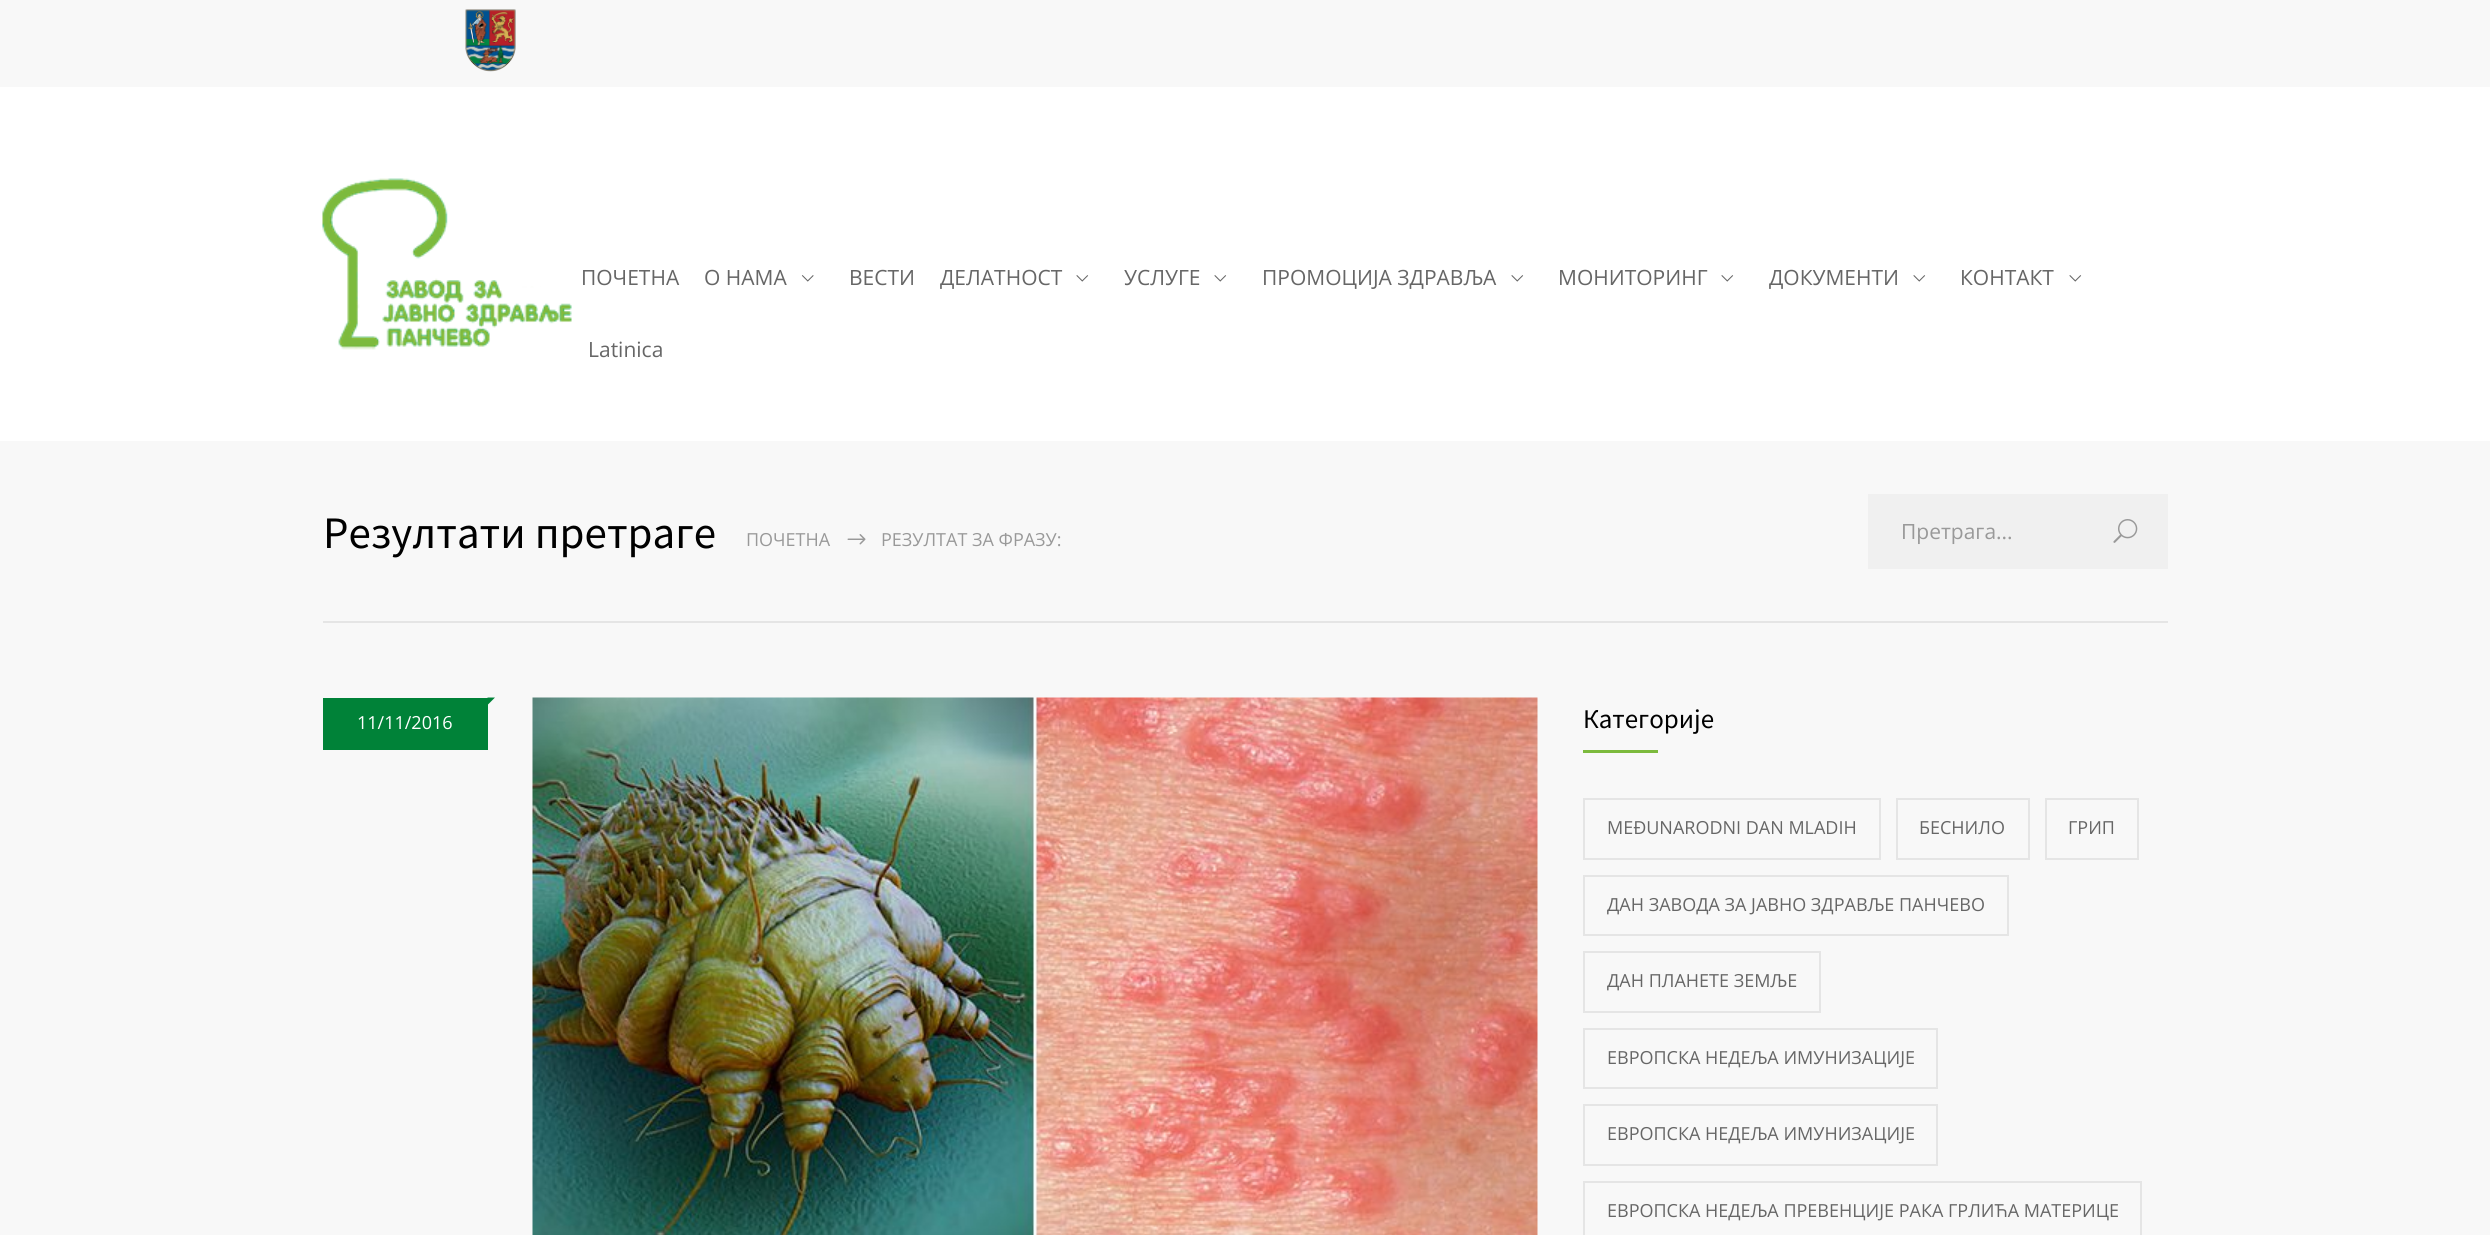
#include <cairo.h>
#include <math.h>
#include <stddef.h>

typedef struct { const char *family; double size; int italic, bold; unsigned color; } style_t;
static cairo_t *ctx;

static void ink(unsigned color) {
    cairo_set_source_rgb(ctx, (color >> 16) / 255.0, (color >> 8 & 255) / 255.0, (color & 255) / 255.0);
}

static void write(double x, double y, const char *s, const style_t *st) {
    cairo_select_font_face(ctx, st->family, st->italic ? CAIRO_FONT_SLANT_ITALIC : CAIRO_FONT_SLANT_NORMAL,
        st->bold ? CAIRO_FONT_WEIGHT_BOLD : CAIRO_FONT_WEIGHT_NORMAL);
    cairo_set_font_size(ctx, st->size);
    ink(st->color);
    cairo_move_to(ctx, x, y);
    cairo_show_text(ctx, s);
}

static void block(double x, double y, double w, double h, unsigned color) {
    ink(color);
    cairo_rectangle(ctx, x, y, w, h);
    cairo_fill(ctx);
}

static void paste(const char *path, double x, double y, double w, double h) {
    cairo_surface_t *image = cairo_image_surface_create_from_png(path);
    cairo_save(ctx);
    cairo_set_source_surface(ctx, image, x, y);
    cairo_rectangle(ctx, x, y, w, h);
    cairo_fill(ctx);
    cairo_restore(ctx);
    cairo_surface_destroy(image);
}

static const style_t s1 = {"Open Sans", 21, 0, 0, 0x666666};
static const style_t s2 = {"Source Sans Pro", 45, 0, 0, 0x000000};
static const style_t s3 = {"Open Sans", 18, 0, 0, 0x999999};
static const style_t s4 = {"Open Sans", 21, 0, 0, 0x999999};
static const style_t s5 = {"Open Sans", 18, 0, 0, 0xffffff};
static const style_t s6 = {"Source Sans Pro", 27, 0, 0, 0x000000};
static const style_t s7 = {"Open Sans", 18, 0, 0, 0x666666};

int main(void) {
    cairo_surface_t *surface = cairo_image_surface_create(CAIRO_FORMAT_RGB24, 2490, 1235);
    ctx = cairo_create(surface);
    cairo_font_options_t *options = cairo_font_options_create();
    cairo_font_options_set_hint_metrics(options, CAIRO_HINT_METRICS_OFF);
    cairo_font_options_set_hint_style(options, CAIRO_HINT_STYLE_NONE);
    cairo_set_font_options(ctx, options);
    cairo_set_miter_limit(ctx, 4);
    ink(0xf8f8f8);
    cairo_paint(ctx);
    paste("pic1.png", 465, 9, 51, 63);
    block(0, 87, 2490, 354, 0xffffff);
    paste("pic2.png", 322, 178, 250, 172);
    write(581, 285, "ПОЧЕТНА", &s1);
    write(704, 285, "О НАМА", &s1);
    paste("pic3.png", 801, 275, 13, 7);
    write(849, 285, "ВЕСТИ", &s1);
    write(940, 285, "ДЕЛАТНОСТ", &s1);
    paste("pic4.png", 1076, 275, 13, 7);
    write(1124, 285, "УСЛУГЕ", &s1);
    paste("pic4.png", 1214, 275, 13, 7);
    write(1262, 285, "ПРОМОЦИЈА ЗДРАВЉА", &s1);
    paste("pic4.png", 1511, 275, 13, 7);
    write(1558, 285, "МОНИТОРИНГ", &s1);
    paste("pic4.png", 1721, 275, 13, 7);
    write(1769, 285, "ДОКУМЕНТИ", &s1);
    paste("pic4.png", 1913, 275, 13, 7);
    write(1960, 285, "КОНТАКТ", &s1);
    paste("pic4.png", 2069, 275, 13, 7);
    write(588, 357, "Latinica", &s1);
    block(323, 621, 1845, 2, 0xe5e5e5);
    write(323, 548, "Резултати претраге", &s2);
    write(746, 546, "ПОЧЕТНА", &s3);
    paste("pic5.png", 847, 534, 19, 11);
    write(881, 546, "РЕЗУЛТАТ ЗА ФРАЗУ:", &s3);
    block(1868, 494, 300, 75, 0xf0f0f0);
    write(1901, 539, "Претрага...", &s4);
    paste("pic6.png", 2113, 519, 25, 24);
    block(323, 698, 165, 52, 0x008238);
    cairo_new_path(ctx);
    cairo_move_to(ctx, 487.5, 697.5);
    cairo_line_to(ctx, 495, 697.5);
    cairo_line_to(ctx, 487.5, 705);
    cairo_close_path(ctx);
    cairo_fill(ctx);
    write(357, 729, "11/11/2016", &s5);
    paste("pic7.png", 532, 697, 1006, 538);
    write(1583, 728, "Категорије", &s6);
    block(1583, 750, 75, 3, 0x7cba3d);
    cairo_rectangle(ctx, 1584, 799, 296, 60);
    ink(0xe5e5e5);
    cairo_stroke(ctx);
    write(1607, 834, "MEĐUNARODNI DAN MLADIH", &s7);
    cairo_rectangle(ctx, 1897, 799, 132, 60);
    ink(0xe5e5e5);
    cairo_stroke(ctx);
    write(1919, 834, "БЕСНИЛО", &s7);
    cairo_rectangle(ctx, 2046, 799, 92, 60);
    ink(0xe5e5e5);
    cairo_stroke(ctx);
    write(2068, 834, "ГРИП", &s7);
    cairo_rectangle(ctx, 1584, 876, 424, 59);
    ink(0xe5e5e5);
    cairo_stroke(ctx);
    write(1607, 911, "ДАН ЗАВОДА ЗА ЈАВНО ЗДРАВЉЕ ПАНЧЕВО", &s7);
    cairo_rectangle(ctx, 1584, 952, 236, 60);
    ink(0xe5e5e5);
    cairo_stroke(ctx);
    write(1607, 987, "ДАН ПЛАНЕТЕ ЗЕМЉЕ", &s7);
    cairo_rectangle(ctx, 1584, 1029, 353, 59);
    ink(0xe5e5e5);
    cairo_stroke(ctx);
    write(1607, 1064, "ЕВРОПСКА НЕДЕЉА ИМУНИЗАЦИЈЕ", &s7);
    cairo_rectangle(ctx, 1584, 1105, 353, 60);
    ink(0xe5e5e5);
    cairo_stroke(ctx);
    write(1607, 1140, "ЕВРОПСКА НЕДЕЉА ИМУНИЗАЦИЈЕ", &s7);
    cairo_rectangle(ctx, 1584, 1182, 557, 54);
    ink(0xe5e5e5);
    cairo_stroke(ctx);
    write(1607, 1217, "ЕВРОПСКА НЕДЕЉА ПРЕВЕНЦИЈЕ РАКА ГРЛИЋА МАТЕРИЦЕ", &s7);
    cairo_surface_write_to_png(surface, "screenshot.png");
    cairo_font_options_destroy(options);
    cairo_destroy(ctx);
    cairo_surface_destroy(surface);
    return 0;
}
